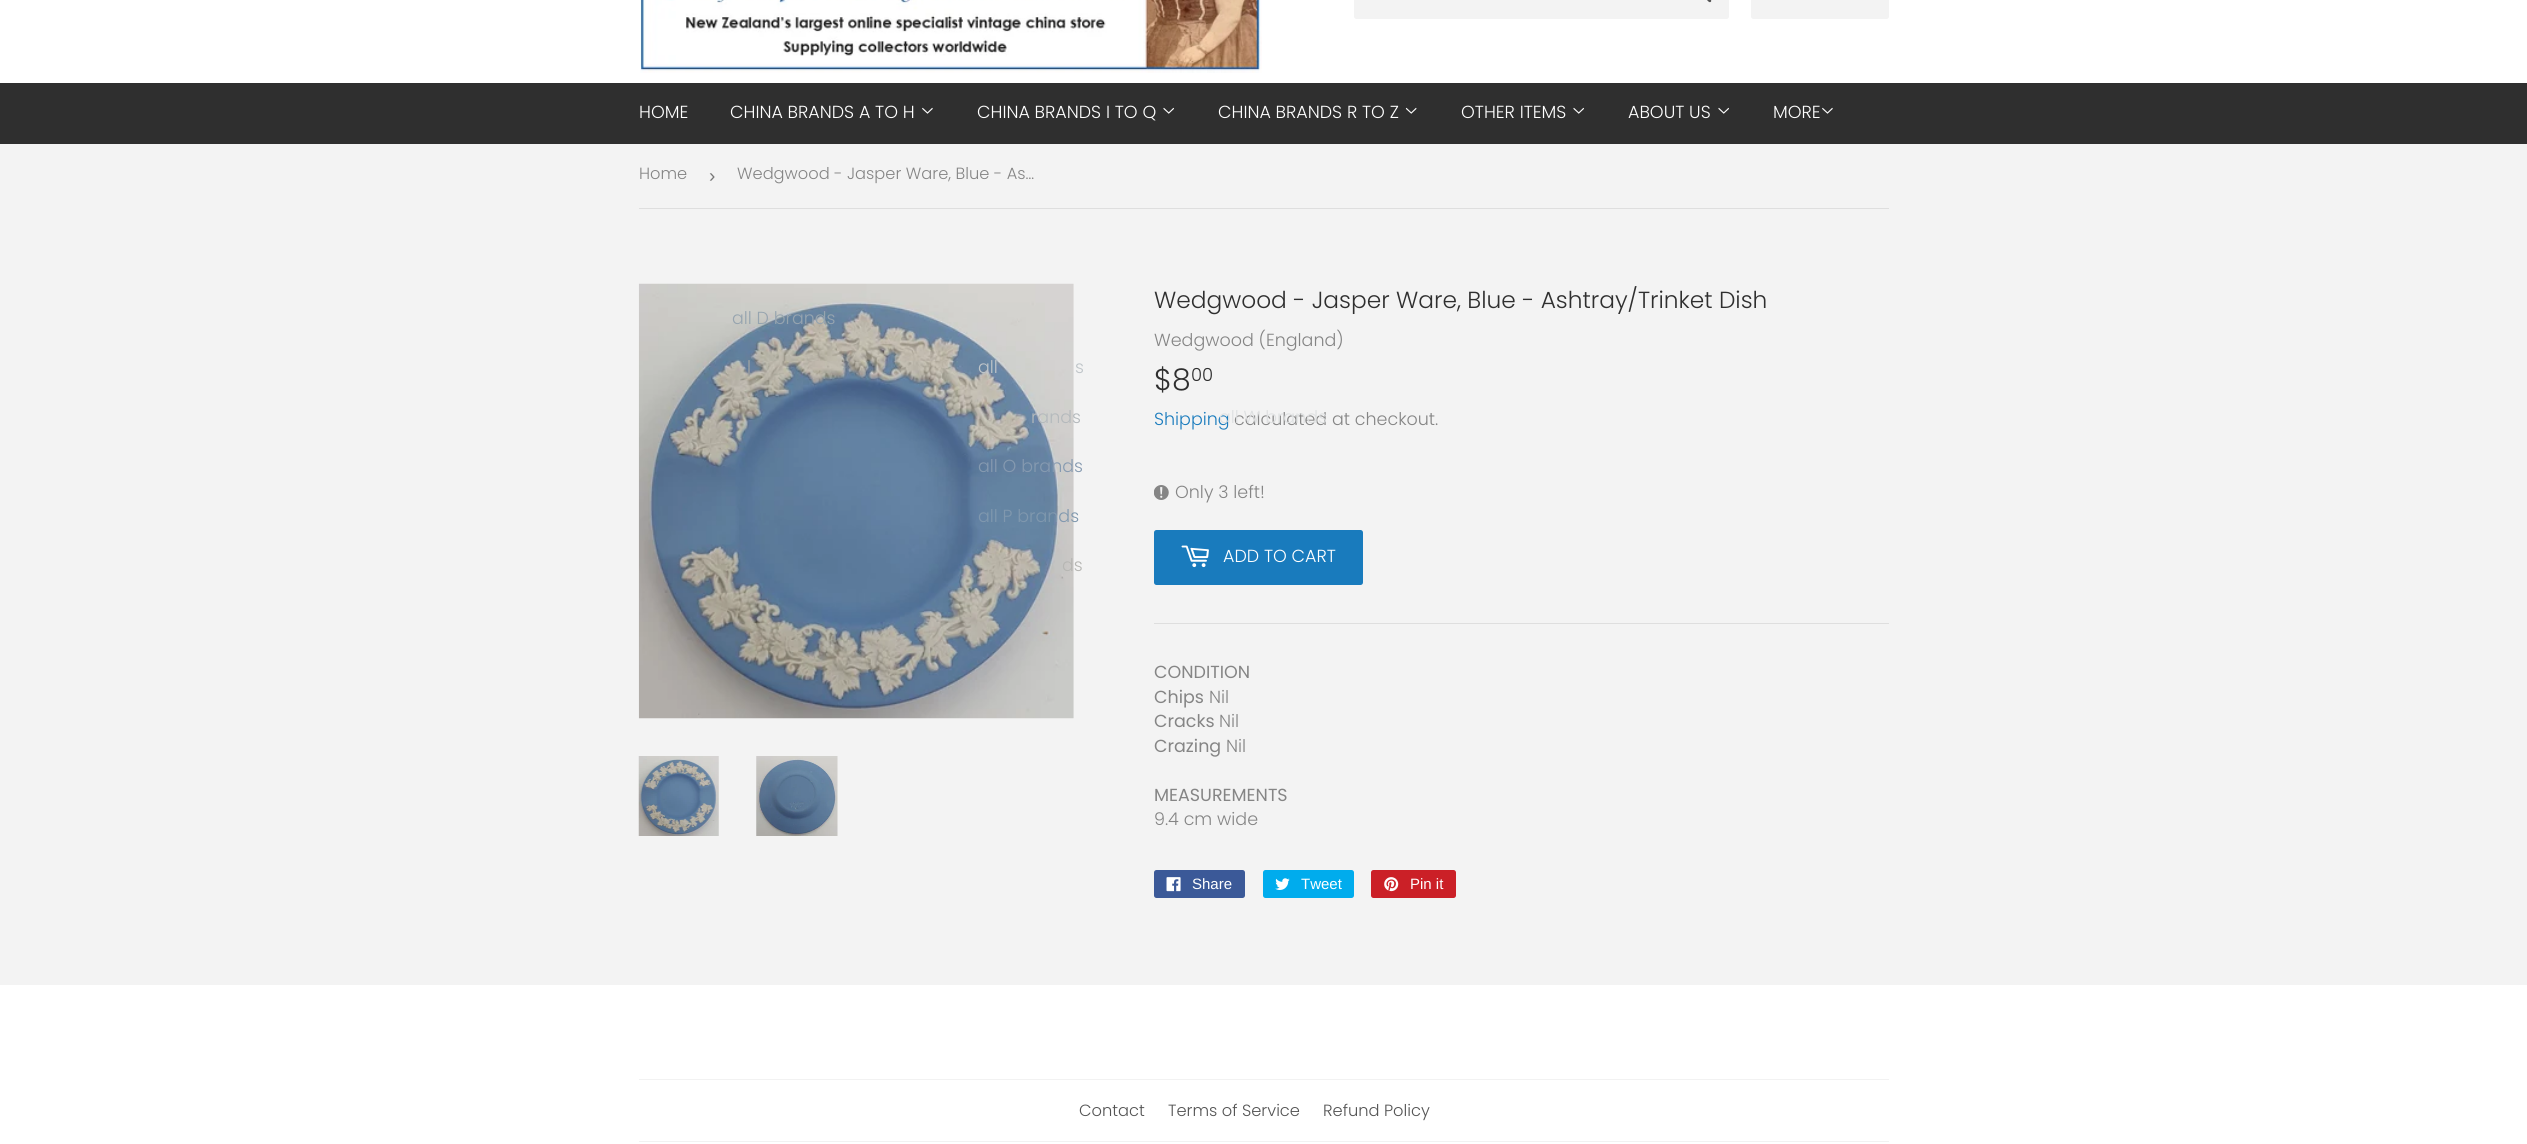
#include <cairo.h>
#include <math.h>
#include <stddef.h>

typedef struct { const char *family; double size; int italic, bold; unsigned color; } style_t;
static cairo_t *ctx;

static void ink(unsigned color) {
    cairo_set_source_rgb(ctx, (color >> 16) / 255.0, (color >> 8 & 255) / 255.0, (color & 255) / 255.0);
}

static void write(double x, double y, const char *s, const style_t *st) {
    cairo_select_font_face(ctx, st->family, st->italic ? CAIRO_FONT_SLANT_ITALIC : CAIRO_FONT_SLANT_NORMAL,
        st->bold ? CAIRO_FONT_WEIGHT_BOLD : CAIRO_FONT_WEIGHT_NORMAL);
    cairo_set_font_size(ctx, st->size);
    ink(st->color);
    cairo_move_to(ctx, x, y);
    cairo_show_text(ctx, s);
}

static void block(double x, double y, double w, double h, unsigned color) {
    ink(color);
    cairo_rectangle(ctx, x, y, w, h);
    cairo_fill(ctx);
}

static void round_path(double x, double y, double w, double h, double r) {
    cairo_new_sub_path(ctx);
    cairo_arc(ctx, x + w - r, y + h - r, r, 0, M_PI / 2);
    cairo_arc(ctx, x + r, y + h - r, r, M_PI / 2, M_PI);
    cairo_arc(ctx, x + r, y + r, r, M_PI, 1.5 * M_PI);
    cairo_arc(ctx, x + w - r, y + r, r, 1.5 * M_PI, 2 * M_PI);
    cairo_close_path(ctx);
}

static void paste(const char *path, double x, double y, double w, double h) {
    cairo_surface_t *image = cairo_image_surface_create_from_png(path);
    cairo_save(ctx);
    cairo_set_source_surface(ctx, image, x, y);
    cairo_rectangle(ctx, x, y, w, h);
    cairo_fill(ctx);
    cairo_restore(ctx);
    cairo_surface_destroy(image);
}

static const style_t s1 = {"Poppins Light", 17.5, 0, 0, 0xffffff};
static const style_t s2 = {"Poppins Light", 17.5, 0, 0, 0x96a4af};
static const style_t s3 = {"Poppins Light", 17.5, 0, 0, 0xa5a6a2};
static const style_t s4 = {"Poppins Light", 17.5, 0, 0, 0xbfc5c9};
static const style_t s5 = {"Poppins Light", 17.5, 0, 0, 0xb4b9bc};
static const style_t s6 = {"Poppins Light", 17.5, 0, 0, 0x869ab0};
static const style_t s7 = {"Poppins Light", 17.5, 0, 0, 0x8098ae};
static const style_t s8 = {"Poppins Light", 17.5, 0, 0, 0xb6b6b3};
static const style_t s9 = {"Poppins Light", 17.5, 0, 0, 0x197bbd};
static const style_t s10 = {"Poppins Light", 17.5, 0, 0, 0x858585};
static const style_t s11 = {"Poppins Light", 17.5, 0, 0, 0xdee0e1};
static const style_t s12 = {"Poppins Light", 16.25, 0, 0, 0x858585};
static const style_t s13 = {"Liberation Sans", 19, 0, 0, 0x767676};
static const style_t s14 = {"Poppins Light", 23.3, 0, 0, 0x2f2f2f};
static const style_t s15 = {"Poppins Light", 30, 0, 0, 0x2f2f2f};
static const style_t s16 = {"Poppins Light", 18, 0, 0, 0x2f2f2f};
static const style_t s17 = {"Poppins", 17.5, 0, 0, 0x858585};
static const style_t s18 = {"Liberation Sans", 15, 0, 0, 0xffffff};
static const style_t s19 = {"Poppins Light", 16.25, 0, 0, 0x545454};

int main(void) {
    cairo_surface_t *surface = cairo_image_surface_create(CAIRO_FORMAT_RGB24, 2527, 1144);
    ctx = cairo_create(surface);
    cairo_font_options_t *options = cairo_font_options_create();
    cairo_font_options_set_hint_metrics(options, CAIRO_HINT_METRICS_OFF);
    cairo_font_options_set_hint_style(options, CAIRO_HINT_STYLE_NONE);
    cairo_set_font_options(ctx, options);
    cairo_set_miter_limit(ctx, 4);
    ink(0xf3f3f3);
    cairo_paint(ctx);
    block(0, 0, 2527, 83, 0xffffff);
    paste("pic1.png", 640, 0, 622, 73);
    ink(0xf3f3f3);
    round_path(1354, -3, 375, 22, 2.5);
    cairo_fill(ctx);
    paste("pic2.png", 1707, 0, 5, 3);
    round_path(1751, -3, 138, 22, 2.5);
    cairo_fill(ctx);
    block(0, 83, 2527, 61, 0x2f2f2f);
    write(639, 118, "HOME", &s1);
    write(730, 118, "CHINA BRANDS A TO H", &s1);
    paste("pic3.png", 922, 107, 11, 7);
    paste("pic6.png", 638, 283, 436, 436);
    write(732, 324, "all D brands", &s2);
    write(747, 373, "l", &s3);
    write(977, 118, "CHINA BRANDS I TO Q", &s1);
    paste("pic4.png", 1163, 107, 11, 7);
    write(978, 373, "all", &s4);
    write(1075, 373, "s", &s4);
    write(1031, 423, "rands", &s5);
    write(978, 472, "all O brands", &s6);
    write(978, 522, "all P brands", &s7);
    write(1062, 571, "ds", &s8);
    write(1218, 118, "CHINA BRANDS R TO Z", &s1);
    paste("pic5.png", 1405, 107, 12, 7);
    write(1154, 425, "Shipping", &s9);
    write(1234, 425, "calculated at checkout.", &s10);
    write(1219, 423, "all W brands", &s11);
    write(1461, 118, "OTHER ITEMS", &s1);
    paste("pic4.png", 1573, 107, 11, 7);
    write(1628, 118, "ABOUT US", &s1);
    paste("pic4.png", 1718, 107, 11, 7);
    write(1773, 118, "MORE", &s1);
    paste("pic3.png", 1822, 107, 11, 7);
    block(639, 208, 1250, 1, 0xdedede);
    write(639, 179, "Home", &s12);
    write(709, 182, "›", &s13);
    write(737, 179, "Wedgwood - Jasper Ware, Blue - As…", &s12);
    paste("pic7.png", 638, 756, 81, 80);
    paste("pic8.png", 756, 756, 82, 80);
    write(1154, 308, "Wedgwood - Jasper Ware, Blue - Ashtray/Trinket Dish", &s14);
    write(1154, 346, "Wedgwood (England)", &s10);
    write(1154, 390, "$8", &s15);
    write(1191, 381, "00", &s16);
    paste("pic9.png", 1154, 485, 15, 15);
    write(1175, 498, "Only 3 left!", &s10);
    ink(0x197bbd);
    round_path(1154, 530, 209, 55, 2.5);
    cairo_fill(ctx);
    paste("pic10.png", 1181, 545, 28, 23);
    write(1223, 562, "ADD TO CART", &s1);
    block(1154, 623, 735, 1, 0xdedede);
    write(1154, 678, "CONDITION", &s17);
    write(1154, 703, "Chips", &s17);
    write(1209, 703, "Nil", &s10);
    write(1154, 727, "Cracks", &s17);
    write(1219, 727, "Nil", &s10);
    write(1154, 752, "Crazing", &s17);
    write(1226, 752, "Nil", &s10);
    write(1154, 801, "MEASUREMENTS", &s17);
    write(1154, 825, "9.4 cm wide", &s10);
    ink(0x3b5998);
    round_path(1154, 870, 91, 28, 2.5);
    cairo_fill(ctx);
    paste("pic11.png", 1166, 877, 15, 15);
    write(1192, 889, "Share", &s18);
    ink(0x00aced);
    round_path(1263, 870, 91, 28, 2.5);
    cairo_fill(ctx);
    paste("pic12.png", 1275, 878, 15, 12);
    write(1301, 889, "Tweet", &s18);
    ink(0xcb2027);
    round_path(1371, 870, 85, 28, 2.5);
    cairo_fill(ctx);
    paste("pic13.png", 1384, 877, 15, 15);
    write(1410, 889, "Pin it", &s18);
    block(0, 985, 2527, 159, 0xffffff);
    block(639, 1079, 1250, 1, 0xf2f2f2);
    write(1079, 1116, "Contact", &s19);
    write(1168, 1116, "Terms of Service", &s19);
    write(1323, 1116, "Refund Policy", &s19);
    block(639, 1141, 1250, 1, 0xf2f2f2);
    cairo_surface_write_to_png(surface, "screenshot.png");
    cairo_font_options_destroy(options);
    cairo_destroy(ctx);
    cairo_surface_destroy(surface);
    return 0;
}
